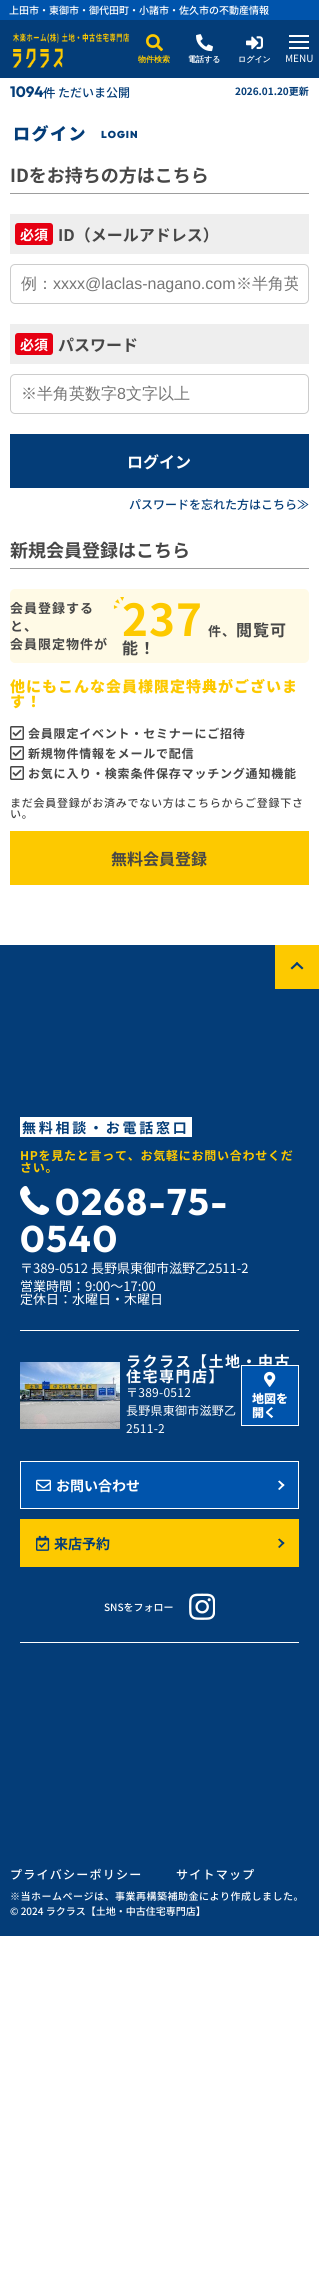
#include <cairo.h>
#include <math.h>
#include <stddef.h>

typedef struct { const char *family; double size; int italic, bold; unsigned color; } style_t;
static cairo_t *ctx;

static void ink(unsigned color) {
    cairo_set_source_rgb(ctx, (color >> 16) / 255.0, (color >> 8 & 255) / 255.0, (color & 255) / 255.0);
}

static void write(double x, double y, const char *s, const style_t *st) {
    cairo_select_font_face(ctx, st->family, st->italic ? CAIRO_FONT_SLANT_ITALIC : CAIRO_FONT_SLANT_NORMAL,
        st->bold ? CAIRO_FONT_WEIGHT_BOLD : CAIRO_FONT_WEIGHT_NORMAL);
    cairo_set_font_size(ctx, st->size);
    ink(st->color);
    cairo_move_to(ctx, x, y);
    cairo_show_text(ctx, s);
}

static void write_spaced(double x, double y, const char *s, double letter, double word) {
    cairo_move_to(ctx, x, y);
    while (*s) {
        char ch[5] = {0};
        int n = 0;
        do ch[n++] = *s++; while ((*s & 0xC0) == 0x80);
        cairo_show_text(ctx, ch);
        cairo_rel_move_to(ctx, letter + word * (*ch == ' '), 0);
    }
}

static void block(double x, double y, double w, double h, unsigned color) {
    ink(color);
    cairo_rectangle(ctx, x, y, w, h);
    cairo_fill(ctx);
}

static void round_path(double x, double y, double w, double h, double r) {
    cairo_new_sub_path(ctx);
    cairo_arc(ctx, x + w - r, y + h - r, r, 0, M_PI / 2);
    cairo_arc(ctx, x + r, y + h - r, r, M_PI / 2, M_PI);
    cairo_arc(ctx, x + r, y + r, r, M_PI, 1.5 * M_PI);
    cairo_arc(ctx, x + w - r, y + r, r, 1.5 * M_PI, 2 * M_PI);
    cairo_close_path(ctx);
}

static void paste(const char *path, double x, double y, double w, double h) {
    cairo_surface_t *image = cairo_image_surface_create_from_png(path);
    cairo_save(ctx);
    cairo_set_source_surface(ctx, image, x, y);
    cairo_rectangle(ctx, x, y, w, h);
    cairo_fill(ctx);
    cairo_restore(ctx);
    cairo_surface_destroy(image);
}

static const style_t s1 = {"Noto Sans JP Medium", 10, 0, 0, 0xffffff};
static const style_t s2 = {"WenQuanYi Zen Hei", 8, 0, 1, 0xfdc900};
static const style_t s3 = {"WenQuanYi Zen Hei", 8, 0, 1, 0xffffff};
static const style_t s4 = {"Noto Sans JP", 10, 0, 0, 0xffffff};
static const style_t s5 = {"Outfit", 15, 0, 1, 0x043d78};
static const style_t s6 = {"WenQuanYi Zen Hei", 12, 0, 1, 0x043d78};
static const style_t s7 = {"Noto Sans JP Medium", 12, 0, 0, 0x043d78};
static const style_t s8 = {"Noto Sans JP", 10, 0, 1, 0x043d78};
static const style_t s9 = {"Noto Sans JP", 18, 0, 1, 0x474747};
static const style_t s10 = {"Noto Sans JP", 14, 0, 1, 0xffffff};
static const style_t s11 = {"Noto Sans JP", 16, 0, 1, 0x474747};
static const style_t s12 = {"WenQuanYi Zen Hei Medium", 16, 0, 0, 0x757575};
static const style_t s13 = {"Liberation Sans", 16, 0, 0, 0x757575};
static const style_t s14 = {"Noto Sans JP", 16, 0, 1, 0xffffff};
static const style_t s15 = {"Noto Sans JP", 13, 0, 0, 0xffffff};
static const style_t s16 = {"Noto Sans JP Black", 12, 0, 0, 0xffffff};
static const style_t s17 = {"Noto Sans JP", 14, 0, 1, 0x043d78};

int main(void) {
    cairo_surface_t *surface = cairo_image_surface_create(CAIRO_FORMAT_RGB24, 319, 2281);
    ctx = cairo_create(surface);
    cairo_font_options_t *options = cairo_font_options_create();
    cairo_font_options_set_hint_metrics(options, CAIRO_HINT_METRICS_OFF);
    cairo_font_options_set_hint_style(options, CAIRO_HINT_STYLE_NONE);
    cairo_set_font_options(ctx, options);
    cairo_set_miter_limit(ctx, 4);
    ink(0xffffff);
    cairo_paint(ctx);
    block(0, 0, 319, 20, 0x0054ac);
    write(9, 14, "上田市・東御市・御代田町・小諸市・佐久市の不動産情報", &s1);
    block(0, 20, 319, 58, 0x043d78);
    paste("pic1.png", 13, 33, 116, 35);
    paste("pic2.png", 146, 34, 17, 18);
    write(138, 62, "物件検索", &s2);
    paste("pic3.png", 196, 34, 17, 18);
    write(188, 62, "電話する", &s3);
    write(285, 62, "MENU", &s4);
    ink(0x043d78);
    round_path(220, 38, 68, 23, 11.5);
    cairo_fill(ctx);
    paste("pic4.png", 246, 36, 17, 14);
    write(238, 62, "ログイン", &s3);
    block(289, 35, 20, 2, 0xffffff);
    block(289, 41, 20, 2, 0xffffff);
    block(289, 47, 20, 2, 0xffffff);
    write(10, 97, "1094", &s5);
    write(43, 97, "件", &s6);
    write(58, 97, "ただいま公開", &s7);
    write(235, 95, "2026.01.20更新", &s8);
    cairo_select_font_face(ctx, "Noto Sans JP Black", CAIRO_FONT_SLANT_NORMAL, CAIRO_FONT_WEIGHT_NORMAL);
    cairo_set_font_size(ctx, 17);
    write_spaced(13, 140, "ログイン", 1.5, 0);
    cairo_select_font_face(ctx, "Outfit Black", CAIRO_FONT_SLANT_NORMAL, CAIRO_FONT_WEIGHT_NORMAL);
    cairo_set_font_size(ctx, 10);
    write_spaced(101, 138, "LOGIN", 1, 0);
    block(10, 193, 299, 1, 0x9d9d9d);
    write(10, 182, "IDをお持ちの方はこちら", &s9);
    block(10, 214, 299, 40, 0xeeeeee);
    ink(0xe60012);
    round_path(15, 223, 38, 22, 3);
    cairo_fill(ctx);
    write(20, 240, "必須", &s10);
    write(58, 241, "ID（メールアドレス）", &s11);
    round_path(10.5, 264.5, 298, 39, 4.5);
    ink(0xcccccc);
    cairo_set_line_width(ctx, 1);
    cairo_stroke(ctx);
    write(21, 289, "例：", &s12);
    write(53, 289, "xxxx@laclas-nagano.com", &s13);
    cairo_save(ctx);
    cairo_rectangle(ctx, 21, 274, 277, 21);
    cairo_clip(ctx);
    write(236, 289, "※半角英", &s12);
    cairo_restore(ctx);
    block(10, 324, 299, 40, 0xeeeeee);
    ink(0xe60012);
    round_path(15, 333, 38, 22, 3);
    cairo_fill(ctx);
    write(20, 350, "必須", &s10);
    write(58, 351, "パスワード", &s11);
    round_path(10.5, 374.5, 298, 39, 4.5);
    ink(0xcccccc);
    cairo_stroke(ctx);
    write(21, 399, "※半角英数字", &s12);
    write(117, 399, "8", &s13);
    write(126, 399, "文字以上", &s12);
    block(10, 434, 299, 54, 0x043d78);
    write(127, 468, "ログイン", &s14);
    write(129, 509, "パスワードを忘れた方はこちら≫", &s7);
    block(10, 568, 299, 1, 0x9d9d9d);
    write(10, 557, "新規会員登録はこちら", &s9);
    ink(0xfffae6);
    round_path(10, 589, 299, 74, 5);
    cairo_fill(ctx);
    cairo_set_font_size(ctx, 13);
    ink(0x474747);
    write_spaced(10, 613, "会員登録する", 1, 0);
    write_spaced(10, 631, "と、", 1, 0);
    write_spaced(10, 649, "会員限定物件が", 1, 0);
    cairo_set_font_size(ctx, 44);
    ink(0xfdc900);
    write_spaced(122, 636, "237", 1, 0);
    paste("pic5.png", 113, 597, 11, 12);
    cairo_set_font_size(ctx, 13);
    ink(0x474747);
    write_spaced(208, 636, "件、", 1, 0);
    cairo_set_font_size(ctx, 16);
    write_spaced(236, 636, "閲覧可", 1, 0);
    write_spaced(122, 654, "能！", 1, 0);
    cairo_select_font_face(ctx, "Noto Sans JP Black", CAIRO_FONT_SLANT_NORMAL, CAIRO_FONT_WEIGHT_NORMAL);
    cairo_set_font_size(ctx, 15);
    ink(0xfdc900);
    write_spaced(10, 692, "他にもこんな会員様限定特典がございま", 1, 0);
    write_spaced(10, 707, "す！", 1, 0);
    paste("pic6.png", 10, 726, 14, 14);
    cairo_select_font_face(ctx, "Noto Sans JP", CAIRO_FONT_SLANT_NORMAL, CAIRO_FONT_WEIGHT_BOLD);
    cairo_set_font_size(ctx, 12);
    ink(0x474747);
    write_spaced(28, 738, "会員限定イベント・セミナーにご招待", 0.8, 0);
    paste("pic6.png", 10, 746, 14, 14);
    write_spaced(28, 758, "新規物件情報をメールで配信", 0.8, 0);
    paste("pic6.png", 10, 766, 14, 14);
    write_spaced(28, 778, "お気に入り・検索条件保存マッチング通知機能", 0.8, 0);
    cairo_select_font_face(ctx, "Noto Sans JP Medium", CAIRO_FONT_SLANT_NORMAL, CAIRO_FONT_WEIGHT_NORMAL);
    cairo_set_font_size(ctx, 11);
    write_spaced(10, 807, "まだ会員登録がお済みでない方はこちらからご登録下さ", 0.75, 0);
    write_spaced(10, 818, "い。", 0.75, 0);
    block(10, 831, 299, 54, 0xfdc900);
    write(111, 865, "無料会員登録", &s11);
    block(0, 945, 319, 991, 0x043d78);
    block(275, 945, 44, 44, 0xfdc900);
    ink(0x043d78);
    cairo_new_path(ctx);
    cairo_move_to(ctx, 290.5, 968);
    cairo_line_to(ctx, 297, 962);
    cairo_line_to(ctx, 298.5, 963.5);
    cairo_line_to(ctx, 292, 969.5);
    cairo_close_path(ctx);
    cairo_fill(ctx);
    cairo_new_path(ctx);
    cairo_move_to(ctx, 295.5, 963.5);
    cairo_line_to(ctx, 297, 962);
    cairo_line_to(ctx, 303.5, 968);
    cairo_line_to(ctx, 302, 969.5);
    cairo_close_path(ctx);
    cairo_fill(ctx);
    block(20, 1330, 279, 1, 0xffffff);
    block(20, 1117, 172, 20, 0xffffff);
    cairo_set_font_size(ctx, 14);
    ink(0x043d78);
    write_spaced(22, 1133, "無料相談・お電話窓口", 2.75, 0);
    cairo_set_font_size(ctx, 12);
    ink(0xfdc900);
    write_spaced(20, 1160, "HPを見たと言って、お気軽にお問い合わせくだ", 0.75, 0);
    write_spaced(20, 1172, "さい。", 0.75, 0);
    paste("pic7.png", 20, 1186, 30, 29);
    cairo_select_font_face(ctx, "Outfit", CAIRO_FONT_SLANT_NORMAL, CAIRO_FONT_WEIGHT_BOLD);
    cairo_set_font_size(ctx, 37);
    ink(0xffffff);
    write_spaced(55, 1215, "0268-75-", 1.5, 0);
    write_spaced(20, 1252, "0540", 1.5, 0);
    write(20, 1273, "〒389-0512 長野県東御市滋野乙2511-2", &s15);
    write(20, 1291, "営業時間：9:00〜17:00", &s15);
    write(20, 1304, "定休日：水曜日・木曜日", &s15);
    paste("pic8.png", 20, 1362, 100, 67);
    cairo_select_font_face(ctx, "Noto Sans JP", CAIRO_FONT_SLANT_NORMAL, CAIRO_FONT_WEIGHT_BOLD);
    cairo_set_font_size(ctx, 15);
    write_spaced(126, 1367, "ラクラス【土地・中古", 1.5, 0);
    write_spaced(126, 1382, "住宅専門店】", 1.5, 0);
    cairo_select_font_face(ctx, "Noto Sans JP", CAIRO_FONT_SLANT_NORMAL, CAIRO_FONT_WEIGHT_NORMAL);
    cairo_set_font_size(ctx, 12);
    write_spaced(126, 1397, "〒389-0512", 0.25, 0);
    write_spaced(126, 1415, "長野県東御市滋野乙", 0.25, 0);
    write_spaced(126, 1433, "2511-2", 0.25, 0);
    ink(0x0054ac);
    cairo_rectangle(ctx, 241.5, 1365.5, 57, 60);
    cairo_fill_preserve(ctx);
    ink(0xffffff);
    cairo_stroke(ctx);
    paste("pic9.png", 264, 1371, 12, 16);
    write(252, 1403, "地図を", &s16);
    write(252, 1417, "開く", &s16);
    ink(0x0054ac);
    cairo_rectangle(ctx, 20.5, 1461.5, 278, 47);
    cairo_fill_preserve(ctx);
    ink(0xffffff);
    cairo_stroke(ctx);
    paste("pic10.png", 36, 1479, 15, 12);
    write(56, 1491, "お問い合わせ", &s10);
    cairo_new_path(ctx);
    cairo_move_to(ctx, 279.5, 1480.5);
    cairo_line_to(ctx, 284.5, 1485);
    cairo_line_to(ctx, 283, 1486.5);
    cairo_line_to(ctx, 278, 1481.5);
    cairo_close_path(ctx);
    cairo_fill(ctx);
    cairo_new_path(ctx);
    cairo_move_to(ctx, 283, 1484);
    cairo_line_to(ctx, 284.5, 1485);
    cairo_line_to(ctx, 279.5, 1490);
    cairo_line_to(ctx, 278, 1489);
    cairo_close_path(ctx);
    cairo_fill(ctx);
    block(20, 1519, 279, 48, 0xfdc900);
    paste("pic11.png", 36, 1535, 14, 16);
    write(54, 1549, "来店予約", &s17);
    cairo_new_path(ctx);
    cairo_move_to(ctx, 279.5, 1538.5);
    cairo_line_to(ctx, 284.5, 1543);
    cairo_line_to(ctx, 283, 1544.5);
    cairo_line_to(ctx, 278, 1539.5);
    cairo_close_path(ctx);
    cairo_fill(ctx);
    cairo_new_path(ctx);
    cairo_move_to(ctx, 283, 1542);
    cairo_line_to(ctx, 284.5, 1543);
    cairo_line_to(ctx, 279.5, 1548);
    cairo_line_to(ctx, 278, 1547);
    cairo_close_path(ctx);
    cairo_fill(ctx);
    write(104, 1611, "SNSをフォロー", &s1);
    paste("pic12.png", 189, 1593, 26, 27);
    block(20, 1642, 279, 1, 0xffffff);
    cairo_set_font_size(ctx, 12);
    write_spaced(10, 1879, "プライバシーポリシー", 1.25, 0);
    write_spaced(176, 1879, "サイトマップ", 1.25, 0);
    cairo_set_font_size(ctx, 10);
    write_spaced(10, 1900, "※当ホームページは、事業再構築補助金により作成しました。", 0.5, 0);
    write(10, 1915, "© 2024 ラクラス【土地・中古住宅専門店】", &s1);
    cairo_surface_write_to_png(surface, "screenshot.png");
    cairo_font_options_destroy(options);
    cairo_destroy(ctx);
    cairo_surface_destroy(surface);
    return 0;
}
